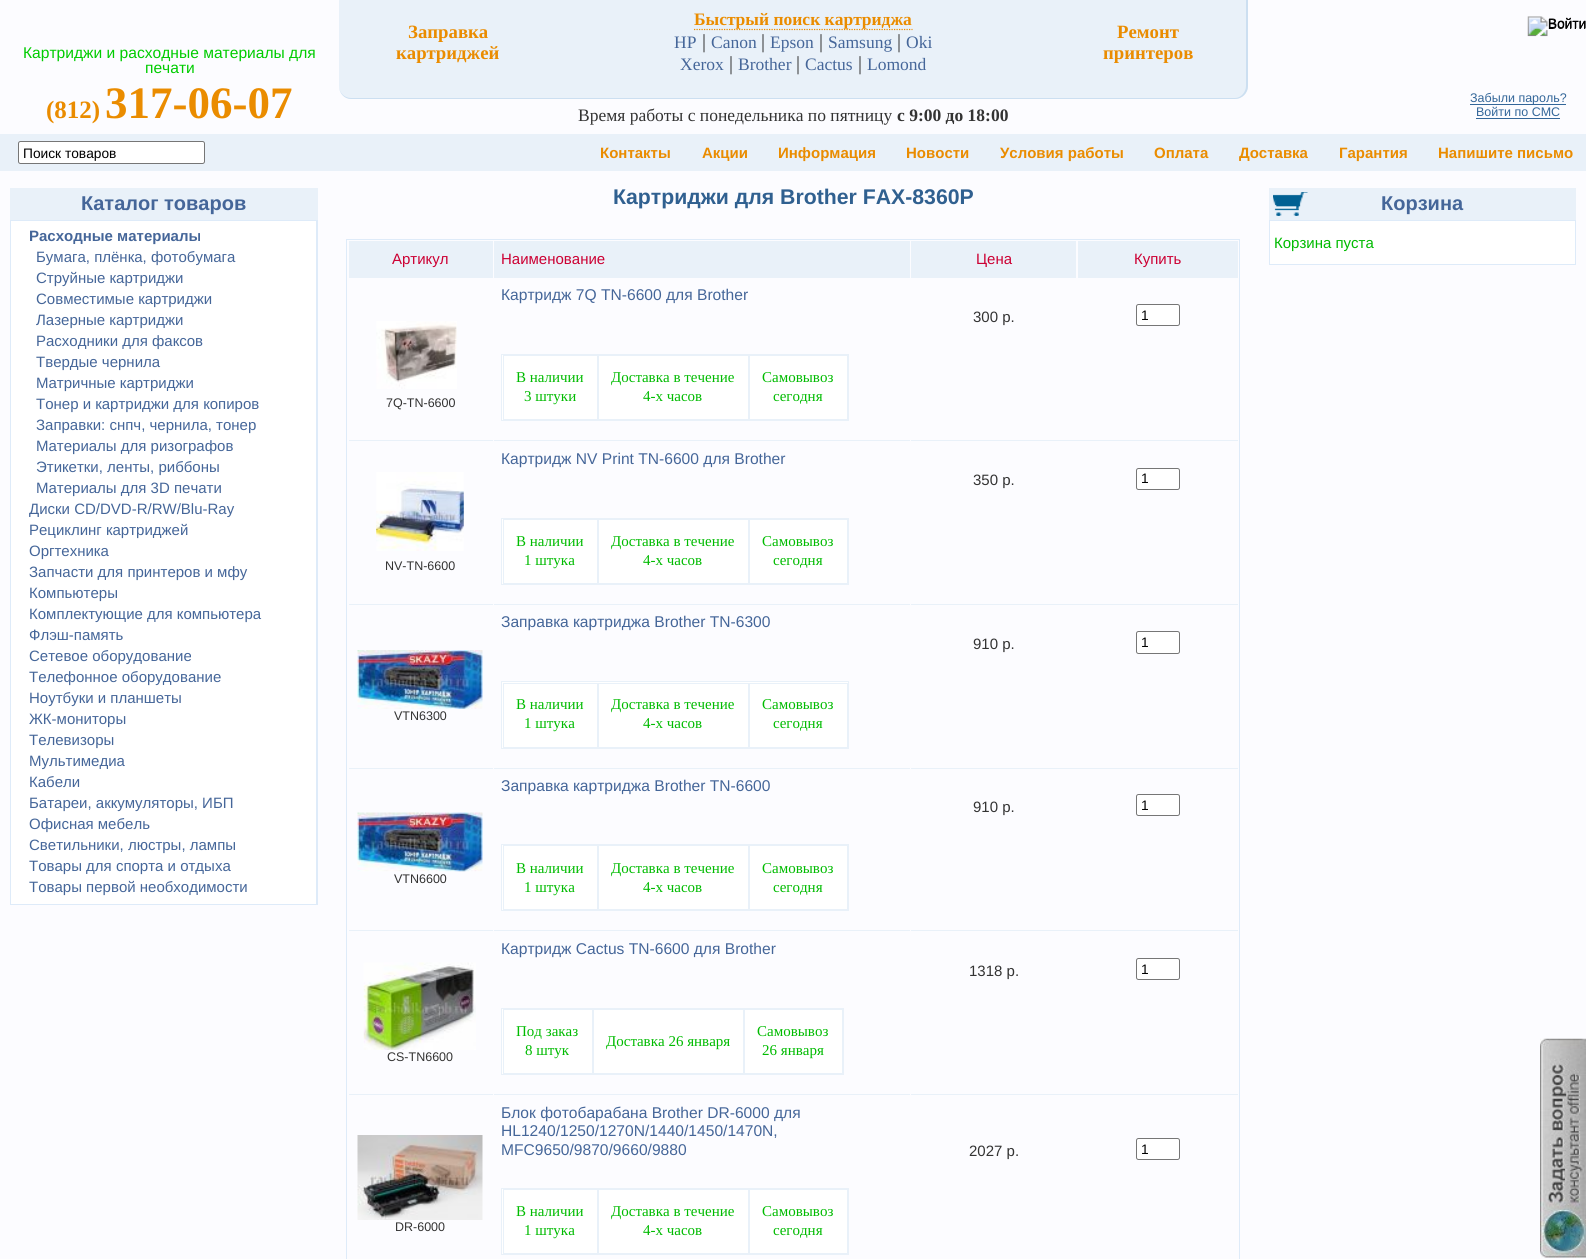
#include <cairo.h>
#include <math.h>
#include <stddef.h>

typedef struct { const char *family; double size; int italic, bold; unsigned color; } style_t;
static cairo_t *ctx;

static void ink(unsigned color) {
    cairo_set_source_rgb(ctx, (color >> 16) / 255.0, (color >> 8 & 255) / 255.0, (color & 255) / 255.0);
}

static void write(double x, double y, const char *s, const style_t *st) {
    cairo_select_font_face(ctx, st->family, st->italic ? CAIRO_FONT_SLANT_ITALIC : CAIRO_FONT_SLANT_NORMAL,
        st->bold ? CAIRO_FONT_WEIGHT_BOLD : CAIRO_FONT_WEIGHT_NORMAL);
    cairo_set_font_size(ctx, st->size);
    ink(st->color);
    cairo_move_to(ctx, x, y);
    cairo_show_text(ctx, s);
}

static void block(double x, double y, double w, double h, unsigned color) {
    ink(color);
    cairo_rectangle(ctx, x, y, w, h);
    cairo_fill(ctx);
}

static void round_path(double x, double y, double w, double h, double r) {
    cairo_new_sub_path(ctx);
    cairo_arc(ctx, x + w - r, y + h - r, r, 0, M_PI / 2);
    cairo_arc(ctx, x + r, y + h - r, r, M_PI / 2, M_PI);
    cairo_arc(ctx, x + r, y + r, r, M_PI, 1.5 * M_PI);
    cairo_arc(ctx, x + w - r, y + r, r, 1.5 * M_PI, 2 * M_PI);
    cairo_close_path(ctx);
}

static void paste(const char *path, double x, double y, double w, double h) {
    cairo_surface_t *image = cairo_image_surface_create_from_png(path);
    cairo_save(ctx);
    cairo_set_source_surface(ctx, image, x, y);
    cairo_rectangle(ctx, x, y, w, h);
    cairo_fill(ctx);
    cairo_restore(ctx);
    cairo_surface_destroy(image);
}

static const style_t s1 = {"Liberation Sans", 15.6, 0, 0, 0x00cc00};
static const style_t s2 = {"Liberation Serif", 25, 0, 1, 0xea8c00};
static const style_t s3 = {"Liberation Serif", 45, 0, 1, 0xea8c00};
static const style_t s4 = {"Liberation Serif", 18.75, 0, 1, 0xea8c00};
static const style_t s5 = {"Liberation Serif", 17.5, 0, 1, 0xea8c00};
static const style_t s6 = {"Liberation Serif", 17.5, 0, 0, 0x456699};
static const style_t s7 = {"Liberation Serif", 20, 0, 0, 0x333333};
static const style_t s8 = {"Liberation Serif", 17.5, 0, 0, 0x333333};
static const style_t s9 = {"Liberation Serif", 17.5, 0, 1, 0x333333};
static const style_t s10 = {"Liberation Sans", 13.75, 0, 0, 0x000000};
static const style_t s11 = {"Liberation Sans", 12.5, 0, 0, 0x336699};
static const style_t s12 = {"Liberation Sans", 15, 0, 1, 0xea8c00};
static const style_t s13 = {"Liberation Sans", 20, 0, 1, 0x456699};
static const style_t s14 = {"Liberation Sans", 15, 0, 1, 0x456699};
static const style_t s15 = {"Liberation Sans", 15, 0, 0, 0x456699};
static const style_t s16 = {"Liberation Sans", 21.25, 0, 1, 0x306090};
static const style_t s17 = {"Liberation Sans", 15, 0, 0, 0xcc0033};
static const style_t s18 = {"Liberation Sans", 15.6, 0, 0, 0x456699};
static const style_t s19 = {"Liberation Sans", 15, 0, 0, 0x333333};
static const style_t s20 = {"Liberation Sans", 12.5, 0, 0, 0x333333};
static const style_t s21 = {"Liberation Serif", 15, 0, 0, 0x00bb00};
static const style_t s22 = {"Liberation Sans", 15, 0, 0, 0x00bb00};

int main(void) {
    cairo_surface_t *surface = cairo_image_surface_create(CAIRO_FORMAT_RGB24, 1586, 1259);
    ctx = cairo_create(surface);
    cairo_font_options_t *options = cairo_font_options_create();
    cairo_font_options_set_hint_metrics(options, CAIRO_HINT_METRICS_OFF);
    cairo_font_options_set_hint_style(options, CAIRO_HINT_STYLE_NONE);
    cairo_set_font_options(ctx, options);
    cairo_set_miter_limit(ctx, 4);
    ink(0xfcfcff);
    cairo_paint(ctx);
    write(23, 58, "Картриджи и расходные материалы для", &s1);
    write(145, 73, "печати", &s1);
    write(46, 118, "(812)", &s2);
    write(105, 118, "317-06-07", &s3);
    ink(0xe9f1f9);
    round_path(339, -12, 909, 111, 13);
    cairo_fill(ctx);
    ink(0xccdff1);
    cairo_set_fill_rule(ctx, CAIRO_FILL_RULE_EVEN_ODD);
    cairo_new_path(ctx);
    cairo_move_to(ctx, 351, -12);
    cairo_line_to(ctx, 1235, -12);
    cairo_curve_to(ctx, 1242, -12, 1248, -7, 1248, 0);
    cairo_line_to(ctx, 1248, 86);
    cairo_curve_to(ctx, 1248, 93, 1242, 99, 1235, 99);
    cairo_line_to(ctx, 351, 99);
    cairo_curve_to(ctx, 344, 99, 339, 93, 339, 86);
    cairo_line_to(ctx, 339, 0);
    cairo_curve_to(ctx, 339, -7, 344, -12, 351, -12);
    cairo_close_path(ctx);
    cairo_move_to(ctx, 351, -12);
    cairo_line_to(ctx, 1235, -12);
    cairo_curve_to(ctx, 1241, -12, 1246, -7, 1246, 0);
    cairo_line_to(ctx, 1246, 86);
    cairo_curve_to(ctx, 1246, 92, 1241, 98, 1235, 98);
    cairo_line_to(ctx, 351, 98);
    cairo_curve_to(ctx, 344, 98, 339, 92, 339, 86);
    cairo_line_to(ctx, 339, 0);
    cairo_curve_to(ctx, 339, -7, 344, -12, 351, -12);
    cairo_close_path(ctx);
    cairo_fill(ctx);
    write(408, 38, "Заправка", &s4);
    write(396, 59, "картриджей", &s4);
    cairo_new_path(ctx);
    cairo_move_to(ctx, 694, 29.5);
    cairo_line_to(ctx, 912.5, 29.5);
    cairo_set_line_width(ctx, 1.2);
    cairo_set_dash(ctx, (double[]){1.25, 1.25}, 2, 0);
    cairo_stroke(ctx);
    write(694, 25, "Быстрый поиск картриджа", &s5);
    write(674, 48, "HP", &s6);
    write(702, 48, "|", &s7);
    write(711, 48, "Canon", &s6);
    write(761, 48, "|", &s7);
    write(770, 48, "Epson", &s6);
    write(819, 48, "|", &s7);
    write(828, 48, "Samsung", &s6);
    write(897, 48, "|", &s7);
    write(906, 48, "Oki", &s6);
    write(680, 70, "Xerox", &s6);
    write(729, 70, "|", &s7);
    write(738, 70, "Brother", &s6);
    write(796, 70, "|", &s7);
    write(805, 70, "Cactus", &s6);
    write(858, 70, "|", &s7);
    write(867, 70, "Lomond", &s6);
    write(1117, 38, "Ремонт", &s4);
    write(1103, 59, "принтеров", &s4);
    write(578, 121, "Время работы с понедельника по пятницу", &s8);
    write(897, 121, "с 9:00 до 18:00", &s9);
    paste("pic1.png", 1527, 16, 59, 21);
    write(1548, 28, "Войти", &s10);
    block(1470, 104, 96, 1, 0x336699);
    write(1470, 102, "Забыли пароль?", &s11);
    write(1476, 116, "Войти по СМС", &s11);
    block(1476, 118, 84, 1, 0x336699);
    block(0, 134, 1586, 37, 0xe9f1f9);
    ink(0xffffff);
    round_path(18.5, 141.5, 186, 22, 2);
    cairo_fill_preserve(ctx);
    ink(0x767676);
    cairo_set_line_width(ctx, 1);
    cairo_set_dash(ctx, NULL, 0, 0);
    cairo_stroke(ctx);
    write(23, 158, "Поиск товаров", &s10);
    write(600, 158, "Контакты", &s12);
    write(702, 158, "Акции", &s12);
    write(778, 158, "Информация", &s12);
    write(906, 158, "Новости", &s12);
    write(1000, 158, "Условия работы", &s12);
    write(1154, 158, "Оплата", &s12);
    write(1239, 158, "Доставка", &s12);
    write(1339, 158, "Гарантия", &s12);
    write(1438, 158, "Напишите письмо", &s12);
    block(10, 188, 308, 32, 0xe9f1f9);
    write(81, 210, "Каталог товаров", &s13);
    block(10, 220, 308, 685, 0xdeebf9);
    block(11, 221, 305, 683, 0xffffff);
    write(29, 241, "Расходные материалы", &s14);
    write(36, 262, "Бумага, плёнка, фотобумага", &s15);
    write(36, 283, "Струйные картриджи", &s15);
    write(36, 304, "Совместимые картриджи", &s15);
    write(36, 325, "Лазерные картриджи", &s15);
    write(36, 346, "Расходники для факсов", &s15);
    write(36, 367, "Твердые чернила", &s15);
    write(36, 388, "Матричные картриджи", &s15);
    write(36, 409, "Тонер и картриджи для копиров", &s15);
    write(36, 430, "Заправки: снпч, чернила, тонер", &s15);
    write(36, 451, "Материалы для ризографов", &s15);
    write(36, 472, "Этикетки, ленты, риббоны", &s15);
    write(36, 493, "Материалы для 3D печати", &s15);
    write(29, 514, "Диски CD/DVD-R/RW/Blu-Ray", &s15);
    write(29, 535, "Рециклинг картриджей", &s15);
    write(29, 556, "Оргтехника", &s15);
    write(29, 577, "Запчасти для принтеров и мфу", &s15);
    write(29, 598, "Компьютеры", &s15);
    write(29, 619, "Комплектующие для компьютера", &s15);
    write(29, 640, "Флэш-память", &s15);
    write(29, 661, "Сетевое оборудование", &s15);
    write(29, 682, "Телефонное оборудование", &s15);
    write(29, 703, "Ноутбуки и планшеты", &s15);
    write(29, 724, "ЖК-мониторы", &s15);
    write(29, 745, "Телевизоры", &s15);
    write(29, 766, "Мультимедиа", &s15);
    write(29, 787, "Кабели", &s15);
    write(29, 808, "Батареи, аккумуляторы, ИБП", &s15);
    write(29, 829, "Офисная мебель", &s15);
    write(29, 850, "Светильники, люстры, лампы", &s15);
    write(29, 871, "Товары для спорта и отдыха", &s15);
    write(29, 892, "Товары первой необходимости", &s15);
    write(613, 204, "Картриджи для Brother FAX-8360P", &s16);
    cairo_rectangle(ctx, 346.5, 239.5, 893, 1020);
    ink(0xdeebf9);
    cairo_stroke(ctx);
    block(349, 241, 144, 37, 0xe9f1f9);
    write(392, 264, "Артикул", &s17);
    block(494, 241, 416, 37, 0xe9f1f9);
    write(501, 264, "Наименование", &s17);
    block(911, 241, 165, 37, 0xe9f1f9);
    write(976, 264, "Цена", &s17);
    block(1078, 241, 160, 37, 0xe9f1f9);
    write(1134, 264, "Купить", &s17);
    write(501, 300, "Картридж 7Q TN-6600 для Brother", &s18);
    write(973, 322, "300 р.", &s19);
    ink(0xffffff);
    round_path(1136.5, 304.5, 43, 21, 2);
    cairo_fill_preserve(ctx);
    ink(0x767676);
    cairo_stroke(ctx);
    write(1141, 320, "1", &s10);
    block(349, 440, 144, 1, 0xe9f1f9);
    paste("pic2.png", 376, 321, 81, 68);
    write(386, 407, "7Q-TN-6600", &s20);
    block(494, 440, 416, 1, 0xe9f1f9);
    block(502, 355, 345, 65, 0xffffff);
    cairo_rectangle(ctx, 501.5, 354.5, 347, 66);
    ink(0xe9f1f9);
    cairo_stroke(ctx);
    cairo_rectangle(ctx, 503.5, 355.5, 94, 64);
    cairo_stroke(ctx);
    write(516, 382, "В наличии", &s21);
    write(524, 401, "3 штуки", &s21);
    cairo_rectangle(ctx, 598.5, 355.5, 150, 64);
    ink(0xe9f1f9);
    cairo_stroke(ctx);
    write(611, 382, "Доставка в течение", &s21);
    write(643, 401, "4-х часов", &s21);
    cairo_rectangle(ctx, 749.5, 355.5, 98, 64);
    ink(0xe9f1f9);
    cairo_stroke(ctx);
    write(762, 382, "Самовывоз", &s21);
    write(773, 401, "сегодня", &s21);
    block(911, 440, 327, 1, 0xe9f1f9);
    write(501, 464, "Картридж NV Print TN-6600 для Brother", &s18);
    write(973, 485, "350 р.", &s19);
    ink(0xffffff);
    round_path(1136.5, 468.5, 43, 21, 2);
    cairo_fill_preserve(ctx);
    ink(0x767676);
    cairo_stroke(ctx);
    write(1141, 483, "1", &s10);
    block(349, 604, 144, 1, 0xe9f1f9);
    paste("pic3.png", 376, 472, 88, 79);
    write(385, 570, "NV-TN-6600", &s20);
    block(494, 604, 416, 1, 0xe9f1f9);
    block(502, 519, 345, 65, 0xffffff);
    cairo_rectangle(ctx, 501.5, 518.5, 347, 66);
    ink(0xe9f1f9);
    cairo_stroke(ctx);
    cairo_rectangle(ctx, 503.5, 519.5, 94, 64);
    cairo_stroke(ctx);
    write(516, 546, "В наличии", &s21);
    write(524, 565, "1 штука", &s21);
    cairo_rectangle(ctx, 598.5, 519.5, 150, 64);
    ink(0xe9f1f9);
    cairo_stroke(ctx);
    write(611, 546, "Доставка в течение", &s21);
    write(643, 565, "4-х часов", &s21);
    cairo_rectangle(ctx, 749.5, 519.5, 98, 64);
    ink(0xe9f1f9);
    cairo_stroke(ctx);
    write(762, 546, "Самовывоз", &s21);
    write(773, 565, "сегодня", &s21);
    block(911, 604, 327, 1, 0xe9f1f9);
    write(501, 627, "Заправка картриджа Brother TN-6300", &s18);
    write(973, 649, "910 р.", &s19);
    ink(0xffffff);
    round_path(1136.5, 631.5, 43, 22, 2);
    cairo_fill_preserve(ctx);
    ink(0x767676);
    cairo_stroke(ctx);
    write(1141, 647, "1", &s10);
    block(349, 768, 144, 1, 0xe9f1f9);
    paste("pic4.png", 357, 650, 126, 59);
    write(394, 720, "VTN6300", &s20);
    block(494, 768, 416, 1, 0xe9f1f9);
    ink(0xffffff);
    cairo_rectangle(ctx, 501.5, 681.5, 347, 67);
    cairo_fill_preserve(ctx);
    ink(0xe9f1f9);
    cairo_stroke(ctx);
    cairo_rectangle(ctx, 503.5, 683.5, 94, 64);
    cairo_stroke(ctx);
    write(516, 709, "В наличии", &s21);
    write(524, 728, "1 штука", &s21);
    cairo_rectangle(ctx, 598.5, 683.5, 150, 64);
    ink(0xe9f1f9);
    cairo_stroke(ctx);
    write(611, 709, "Доставка в течение", &s21);
    write(643, 728, "4-х часов", &s21);
    cairo_rectangle(ctx, 749.5, 683.5, 98, 64);
    ink(0xe9f1f9);
    cairo_stroke(ctx);
    write(762, 709, "Самовывоз", &s21);
    write(773, 728, "сегодня", &s21);
    block(911, 768, 327, 1, 0xe9f1f9);
    write(501, 791, "Заправка картриджа Brother TN-6600", &s18);
    write(973, 812, "910 р.", &s19);
    ink(0xffffff);
    round_path(1136.5, 794.5, 43, 21, 2);
    cairo_fill_preserve(ctx);
    ink(0x767676);
    cairo_stroke(ctx);
    write(1141, 810, "1", &s10);
    block(349, 930, 144, 1, 0xe9f1f9);
    paste("pic5.png", 357, 812, 126, 60);
    write(394, 883, "VTN6600", &s20);
    block(494, 930, 416, 1, 0xe9f1f9);
    block(502, 845, 345, 65, 0xffffff);
    cairo_rectangle(ctx, 501.5, 844.5, 347, 66);
    ink(0xe9f1f9);
    cairo_stroke(ctx);
    cairo_rectangle(ctx, 503.5, 845.5, 94, 64);
    cairo_stroke(ctx);
    write(516, 873, "В наличии", &s21);
    write(524, 892, "1 штука", &s21);
    cairo_rectangle(ctx, 598.5, 845.5, 150, 64);
    ink(0xe9f1f9);
    cairo_stroke(ctx);
    write(611, 873, "Доставка в течение", &s21);
    write(643, 892, "4-х часов", &s21);
    cairo_rectangle(ctx, 749.5, 845.5, 98, 64);
    ink(0xe9f1f9);
    cairo_stroke(ctx);
    write(762, 873, "Самовывоз", &s21);
    write(773, 892, "сегодня", &s21);
    block(911, 930, 327, 1, 0xe9f1f9);
    write(501, 954, "Картридж Cactus TN-6600 для Brother", &s18);
    write(969, 976, "1318 р.", &s19);
    ink(0xffffff);
    round_path(1136.5, 958.5, 43, 21, 2);
    cairo_fill_preserve(ctx);
    ink(0x767676);
    cairo_stroke(ctx);
    write(1141, 974, "1", &s10);
    block(349, 1094, 144, 1, 0xe9f1f9);
    paste("pic6.png", 363, 962, 113, 88);
    write(387, 1061, "CS-TN6600", &s20);
    block(494, 1094, 416, 1, 0xe9f1f9);
    block(502, 1009, 340, 65, 0xffffff);
    cairo_rectangle(ctx, 501.5, 1008.5, 342, 66);
    ink(0xe9f1f9);
    cairo_stroke(ctx);
    cairo_rectangle(ctx, 503.5, 1009.5, 89, 64);
    cairo_stroke(ctx);
    write(516, 1036, "Под заказ", &s21);
    write(525, 1055, "8 штук", &s21);
    cairo_rectangle(ctx, 593.5, 1009.5, 150, 64);
    ink(0xe9f1f9);
    cairo_stroke(ctx);
    write(606, 1046, "Доставка 26 января", &s21);
    cairo_rectangle(ctx, 744.5, 1009.5, 98, 64);
    ink(0xe9f1f9);
    cairo_stroke(ctx);
    write(757, 1036, "Самовывоз", &s21);
    write(762, 1055, "26 января", &s21);
    block(911, 1094, 327, 1, 0xe9f1f9);
    write(501, 1118, "Блок фотобарабана Brother DR-6000 для", &s18);
    write(501, 1136, "HL1240/1250/1270N/1440/1450/1470N,", &s18);
    write(501, 1155, "MFC9650/9870/9660/9880", &s18);
    write(969, 1156, "2027 р.", &s19);
    ink(0xffffff);
    round_path(1136.5, 1138.5, 43, 21, 2);
    cairo_fill_preserve(ctx);
    ink(0x767676);
    cairo_stroke(ctx);
    write(1141, 1154, "1", &s10);
    paste("pic7.png", 357, 1135, 126, 85);
    write(395, 1231, "DR-6000", &s20);
    block(502, 1189, 345, 65, 0xffffff);
    cairo_rectangle(ctx, 501.5, 1188.5, 347, 66);
    ink(0xe9f1f9);
    cairo_stroke(ctx);
    cairo_rectangle(ctx, 503.5, 1189.5, 94, 64);
    cairo_stroke(ctx);
    write(516, 1216, "В наличии", &s21);
    write(524, 1235, "1 штука", &s21);
    cairo_rectangle(ctx, 598.5, 1189.5, 150, 64);
    ink(0xe9f1f9);
    cairo_stroke(ctx);
    write(611, 1216, "Доставка в течение", &s21);
    write(643, 1235, "4-х часов", &s21);
    cairo_rectangle(ctx, 749.5, 1189.5, 98, 64);
    ink(0xe9f1f9);
    cairo_stroke(ctx);
    write(762, 1216, "Самовывоз", &s21);
    write(773, 1235, "сегодня", &s21);
    block(1273, 192, 299, 24, 0xe9f1f9);
    paste("pic8.png", 1273, 192, 35, 24);
    cairo_rectangle(ctx, 1271, 190, 303, 28);
    cairo_set_line_width(ctx, 4);
    cairo_stroke(ctx);
    write(1381, 210, "Корзина", &s13);
    block(1269, 220, 307, 45, 0xdeebf9);
    block(1270, 221, 305, 43, 0xffffff);
    write(1274, 248, "Корзина пуста", &s22);
    paste("pic9.png", 1540, 1038, 46, 220);
    cairo_surface_write_to_png(surface, "screenshot.png");
    cairo_font_options_destroy(options);
    cairo_destroy(ctx);
    cairo_surface_destroy(surface);
    return 0;
}
